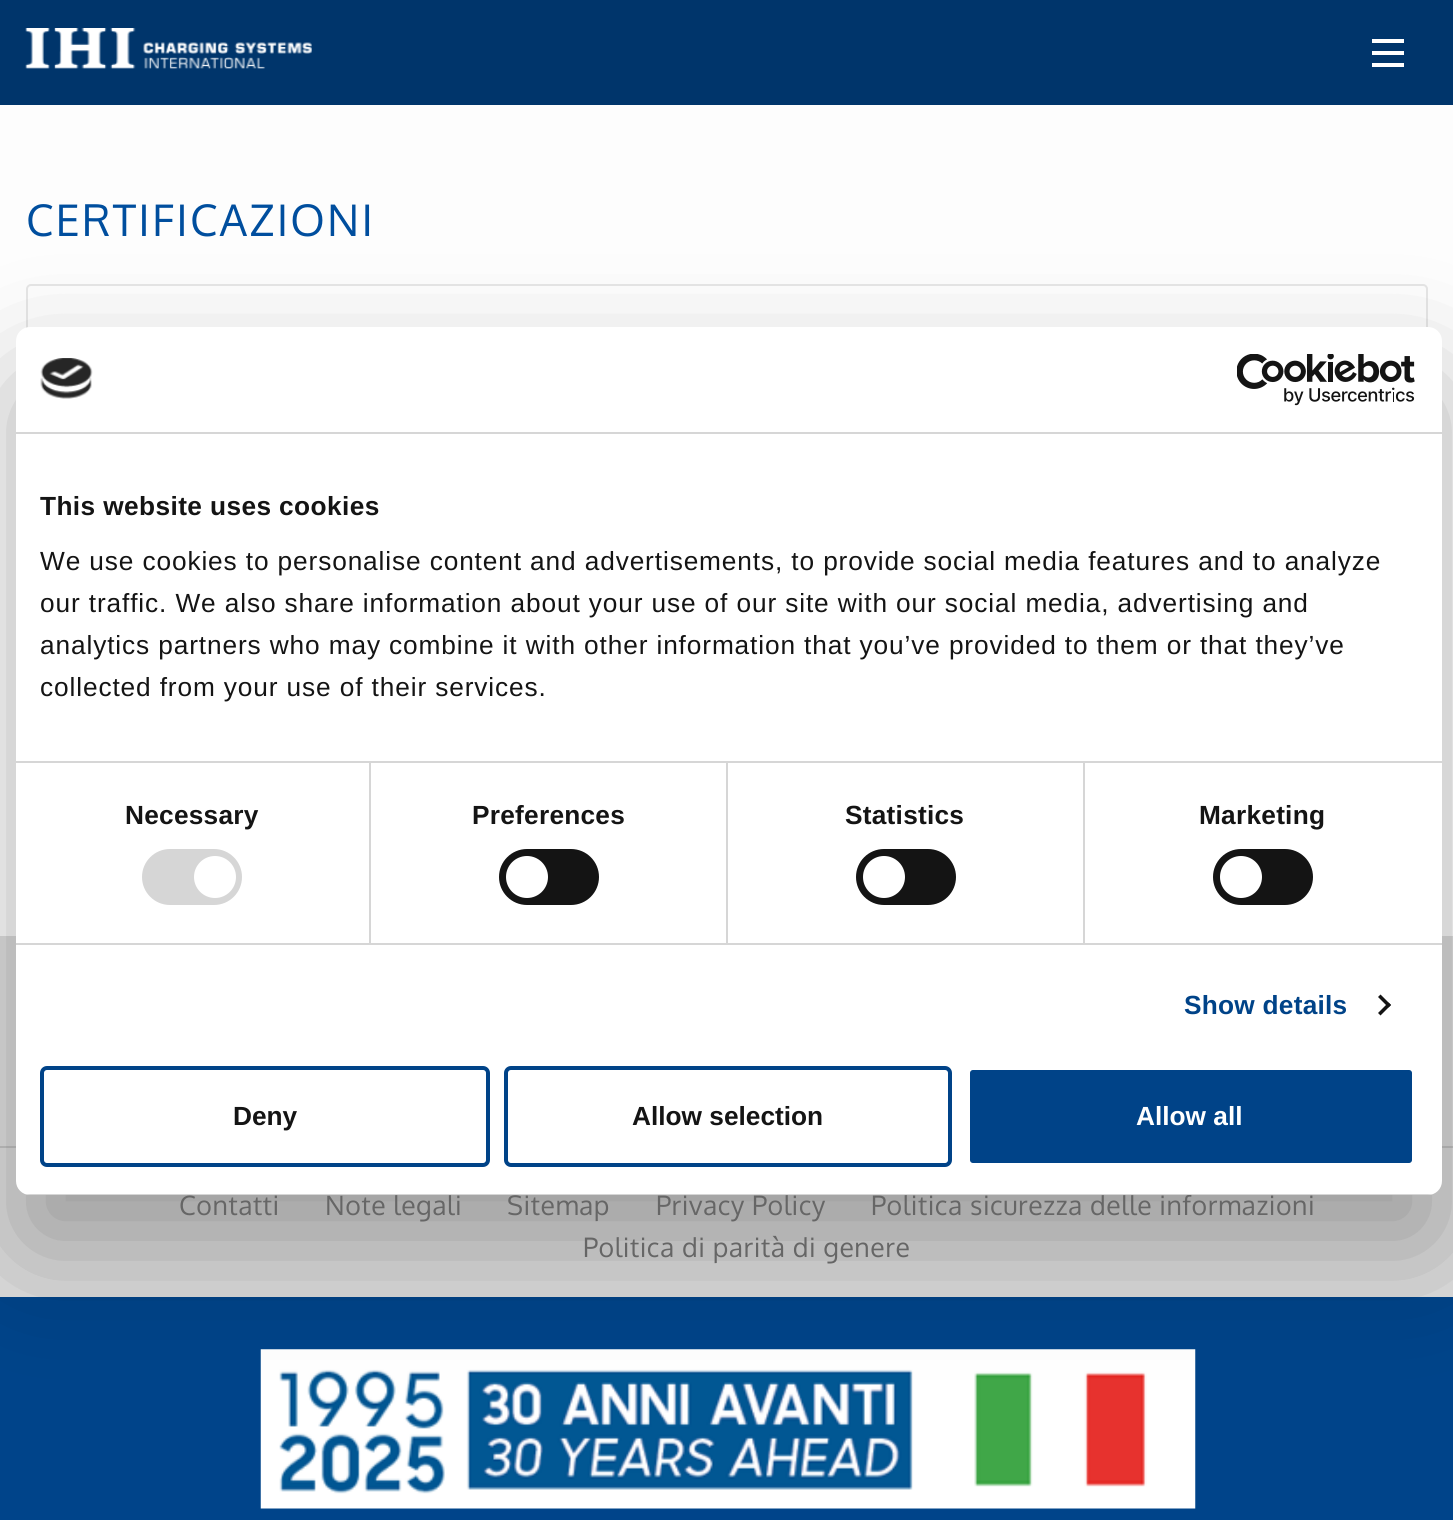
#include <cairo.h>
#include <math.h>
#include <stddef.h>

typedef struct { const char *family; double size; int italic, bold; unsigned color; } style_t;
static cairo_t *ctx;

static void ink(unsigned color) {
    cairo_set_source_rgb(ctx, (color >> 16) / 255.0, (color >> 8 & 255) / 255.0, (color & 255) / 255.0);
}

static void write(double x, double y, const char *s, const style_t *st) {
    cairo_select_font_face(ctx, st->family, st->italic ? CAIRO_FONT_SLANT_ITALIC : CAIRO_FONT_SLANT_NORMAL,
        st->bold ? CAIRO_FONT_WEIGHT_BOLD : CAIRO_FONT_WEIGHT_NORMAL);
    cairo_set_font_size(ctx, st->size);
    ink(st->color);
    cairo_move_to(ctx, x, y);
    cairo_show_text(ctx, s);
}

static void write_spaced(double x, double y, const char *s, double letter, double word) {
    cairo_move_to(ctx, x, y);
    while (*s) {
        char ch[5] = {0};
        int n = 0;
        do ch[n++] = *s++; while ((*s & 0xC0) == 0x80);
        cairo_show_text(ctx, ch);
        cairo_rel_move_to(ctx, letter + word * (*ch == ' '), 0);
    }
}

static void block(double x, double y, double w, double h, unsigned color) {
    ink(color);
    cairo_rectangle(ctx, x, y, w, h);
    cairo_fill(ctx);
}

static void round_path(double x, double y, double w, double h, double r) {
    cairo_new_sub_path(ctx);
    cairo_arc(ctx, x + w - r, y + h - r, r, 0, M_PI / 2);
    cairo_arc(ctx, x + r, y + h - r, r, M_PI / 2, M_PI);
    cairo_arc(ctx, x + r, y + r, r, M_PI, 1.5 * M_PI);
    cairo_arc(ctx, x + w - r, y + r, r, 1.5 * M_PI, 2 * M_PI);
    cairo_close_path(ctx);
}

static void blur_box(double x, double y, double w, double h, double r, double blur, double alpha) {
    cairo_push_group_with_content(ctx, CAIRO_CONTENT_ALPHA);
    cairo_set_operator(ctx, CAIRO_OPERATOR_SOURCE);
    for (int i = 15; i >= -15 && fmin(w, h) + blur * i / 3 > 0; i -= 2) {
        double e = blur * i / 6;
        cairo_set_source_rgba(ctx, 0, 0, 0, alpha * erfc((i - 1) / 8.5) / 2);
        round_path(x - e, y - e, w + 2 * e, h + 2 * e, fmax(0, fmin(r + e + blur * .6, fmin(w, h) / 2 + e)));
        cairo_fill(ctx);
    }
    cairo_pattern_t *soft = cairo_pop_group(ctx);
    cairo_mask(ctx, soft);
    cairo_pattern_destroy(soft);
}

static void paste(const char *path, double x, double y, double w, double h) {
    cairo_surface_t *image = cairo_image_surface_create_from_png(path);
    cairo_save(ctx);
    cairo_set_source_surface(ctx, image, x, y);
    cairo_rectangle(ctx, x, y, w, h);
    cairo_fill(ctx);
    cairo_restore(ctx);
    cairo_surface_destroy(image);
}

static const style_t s1 = {"Liberation Sans", 26.25, 0, 1, 0x141414};
static const style_t s2 = {"Liberation Sans", 26.25, 0, 1, 0xffffff};

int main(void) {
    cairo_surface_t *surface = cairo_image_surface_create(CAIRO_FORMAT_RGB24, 1453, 1520);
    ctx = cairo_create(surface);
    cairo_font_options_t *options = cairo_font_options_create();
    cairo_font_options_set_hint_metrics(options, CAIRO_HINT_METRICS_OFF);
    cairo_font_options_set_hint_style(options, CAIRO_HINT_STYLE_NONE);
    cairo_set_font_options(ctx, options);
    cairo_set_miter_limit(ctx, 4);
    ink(0xfdfdfd);
    cairo_paint(ctx);
    block(0, 0, 1453, 105, 0x00356b);
    paste("pic1.png", 25, 28, 287, 41);
    block(1372, 63, 32, 4, 0xffffff);
    block(1372, 51, 32, 4, 0xffffff);
    block(1372, 39, 32, 4, 0xffffff);
    cairo_select_font_face(ctx, "Oxygen", CAIRO_FONT_SLANT_NORMAL, CAIRO_FONT_WEIGHT_NORMAL);
    cairo_set_font_size(ctx, 43.5);
    ink(0x004e9e);
    write_spaced(26, 236, "CERTIFICAZIONI", 2.2, 0);
    round_path(27, 285, 1400, 99, 4);
    ink(0xe6e6e6);
    cairo_stroke(ctx);
    block(0, 936, 1453, 210, 0xdedede);
    block(0, 1146, 1453, 2, 0xc4c4c4);
    block(0, 1148, 1453, 149, 0xdedede);
    block(0, 1297, 1453, 223, 0x00448a);
    paste("pic4.png", 260, 1349, 936, 160);
    ink(0x000000);
    blur_box(16, 383, 1426, 868, 14, 59.5, 0.3);
    cairo_set_font_size(ctx, 26.6);
    ink(0x666666);
    write_spaced(871, 1215, "Politica sicurezza delle informazioni", 0.55, 0);
    ink(0xffffff);
    round_path(16, 327, 1426, 868, 14);
    cairo_fill(ctx);
    block(16, 432, 1426, 2, 0xd6d6d6);
    paste("pic2.png", 40, 358, 53, 41);
    paste("pic3.png", 1237, 354, 178, 52);
    block(16, 761, 1426, 2, 0xd6d6d6);
    cairo_select_font_face(ctx, "Liberation Sans", CAIRO_FONT_SLANT_NORMAL, CAIRO_FONT_WEIGHT_BOLD);
    cairo_set_font_size(ctx, 26.25);
    ink(0x141414);
    write_spaced(40, 515, "This website uses cookies", 0.4, 0);
    cairo_select_font_face(ctx, "Liberation Sans", CAIRO_FONT_SLANT_NORMAL, CAIRO_FONT_WEIGHT_NORMAL);
    write_spaced(40, 570, "We use cookies to personalise content and advertisements, to provide social media features and to analyze", 0.88, 0);
    write_spaced(40, 612, "our traffic. We also share information about your use of our site with our social media, advertising and", 0.88, 0);
    write_spaced(40, 654, "analytics partners who may combine it with other information that you’ve provided to them or that they’ve", 0.88, 0);
    write_spaced(40, 696, "collected from your use of their services.", 0.88, 0);
    block(16, 943, 1426, 2, 0xd6d6d6);
    block(369, 763, 2, 180, 0xd6d6d6);
    cairo_select_font_face(ctx, "Liberation Sans", CAIRO_FONT_SLANT_NORMAL, CAIRO_FONT_WEIGHT_BOLD);
    ink(0x141414);
    write_spaced(125, 824, "Necessary", 0.25, 0);
    ink(0xd6d6d6);
    round_path(142, 849, 100, 56, 28);
    cairo_fill(ctx);
    ink(0xffffff);
    cairo_arc(ctx, 215, 877, 21, 0, 2 * M_PI);
    cairo_fill(ctx);
    block(726, 763, 2, 180, 0xd6d6d6);
    ink(0x141414);
    write_spaced(472, 824, "Preferences", 0.25, 0);
    round_path(499, 849, 100, 56, 28);
    cairo_fill(ctx);
    ink(0xffffff);
    cairo_arc(ctx, 527, 877, 21, 0, 2 * M_PI);
    cairo_fill(ctx);
    block(1083, 763, 2, 180, 0xd6d6d6);
    ink(0x141414);
    write_spaced(845, 824, "Statistics", 0.25, 0);
    round_path(856, 849, 100, 56, 28);
    cairo_fill(ctx);
    ink(0xffffff);
    cairo_arc(ctx, 884, 877, 21, 0, 2 * M_PI);
    cairo_fill(ctx);
    ink(0x141414);
    write_spaced(1199, 824, "Marketing", 0.25, 0);
    round_path(1213, 849, 100, 56, 28);
    cairo_fill(ctx);
    ink(0xffffff);
    cairo_arc(ctx, 1241, 877, 21, 0, 2 * M_PI);
    cairo_fill(ctx);
    ink(0x004388);
    write_spaced(1184, 1014, "Show details", 0.25, 0);
    ink(0x141414);
    cairo_new_path(ctx);
    cairo_move_to(ctx, 1380.5, 994.5);
    cairo_line_to(ctx, 1391, 1005);
    cairo_line_to(ctx, 1388.5, 1007.5);
    cairo_line_to(ctx, 1378, 997);
    cairo_close_path(ctx);
    cairo_fill(ctx);
    cairo_new_path(ctx);
    cairo_move_to(ctx, 1388.5, 1002.5);
    cairo_line_to(ctx, 1391, 1005);
    cairo_line_to(ctx, 1380.5, 1015.5);
    cairo_line_to(ctx, 1378, 1013);
    cairo_close_path(ctx);
    cairo_fill(ctx);
    cairo_save(ctx);
    round_path(16, 327, 1426, 868, 14);
    cairo_clip(ctx);
    block(25, 1194, 1408, 1, 0xd6d6d6);
    cairo_restore(ctx);
    round_path(42, 1068, 446, 97, 5);
    ink(0x004388);
    cairo_set_line_width(ctx, 4);
    cairo_stroke(ctx);
    write(233, 1125, "Deny", &s1);
    round_path(506, 1068, 444, 97, 5);
    ink(0x004388);
    cairo_stroke(ctx);
    write(632, 1125, "Allow selection", &s1);
    ink(0x004388);
    round_path(968, 1068, 446, 97, 5);
    cairo_fill_preserve(ctx);
    ink(0xffffff);
    cairo_stroke(ctx);
    write(1136, 1125, "Allow all", &s2);
    cairo_select_font_face(ctx, "Oxygen", CAIRO_FONT_SLANT_NORMAL, CAIRO_FONT_WEIGHT_NORMAL);
    cairo_set_font_size(ctx, 26.6);
    ink(0x666666);
    write_spaced(179, 1215, "Contatti", 0.55, 0);
    write_spaced(325, 1215, "Note legali", 0.55, 0);
    write_spaced(507, 1215, "Sitemap", 0.55, 0);
    write_spaced(656, 1215, "Privacy Policy", 0.55, 0);
    write_spaced(583, 1257, "Politica di parità di genere", 0.55, 0);
    cairo_surface_write_to_png(surface, "screenshot.png");
    cairo_font_options_destroy(options);
    cairo_destroy(ctx);
    cairo_surface_destroy(surface);
    return 0;
}
